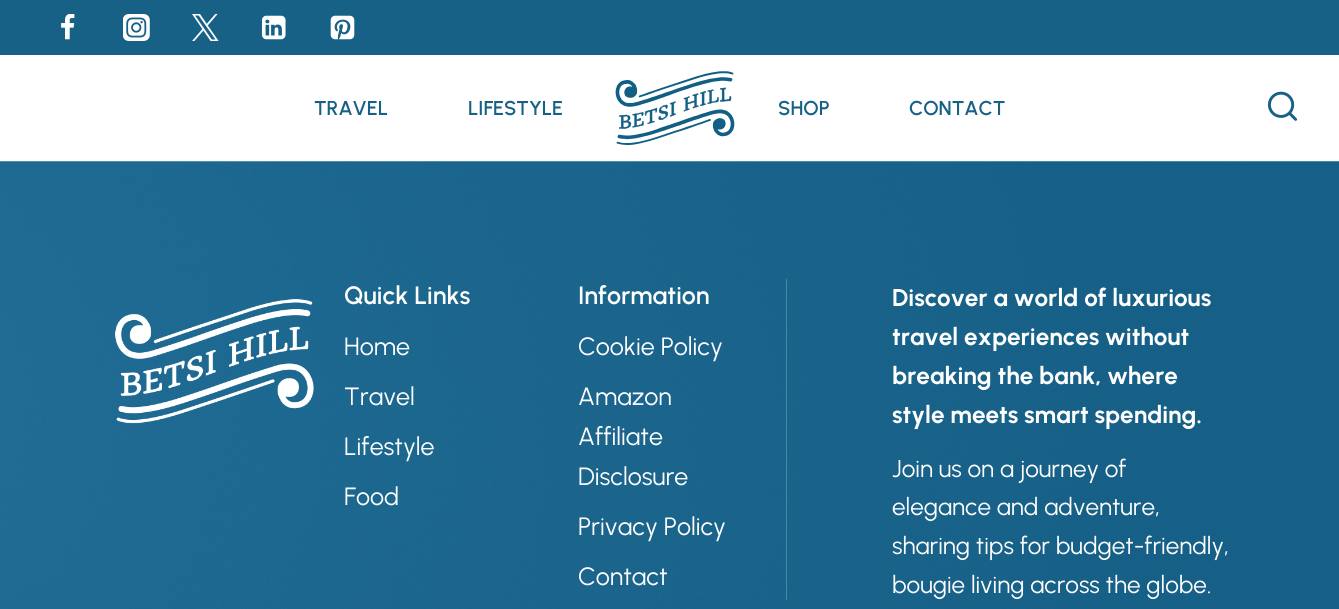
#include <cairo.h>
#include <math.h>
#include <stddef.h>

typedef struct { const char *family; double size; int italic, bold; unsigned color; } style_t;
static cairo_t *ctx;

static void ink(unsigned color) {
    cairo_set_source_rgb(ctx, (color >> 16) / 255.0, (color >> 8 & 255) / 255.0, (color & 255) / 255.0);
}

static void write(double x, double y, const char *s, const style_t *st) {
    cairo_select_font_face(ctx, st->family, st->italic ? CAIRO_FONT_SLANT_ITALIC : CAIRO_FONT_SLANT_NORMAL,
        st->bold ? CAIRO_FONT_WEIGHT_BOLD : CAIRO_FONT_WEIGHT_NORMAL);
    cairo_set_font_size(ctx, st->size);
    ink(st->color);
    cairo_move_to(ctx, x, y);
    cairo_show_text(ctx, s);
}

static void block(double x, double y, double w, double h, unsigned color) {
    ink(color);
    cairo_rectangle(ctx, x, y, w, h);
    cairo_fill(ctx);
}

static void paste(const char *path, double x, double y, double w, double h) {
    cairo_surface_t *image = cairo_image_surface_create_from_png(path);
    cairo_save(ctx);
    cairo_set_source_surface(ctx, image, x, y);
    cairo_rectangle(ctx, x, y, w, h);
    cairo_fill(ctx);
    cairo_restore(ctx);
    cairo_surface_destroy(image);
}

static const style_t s1 = {"Urbanist SemiBold", 20, 0, 0, 0x176086};
static const style_t s2 = {"Urbanist SemiBold", 25, 0, 0, 0xffffff};
static const style_t s3 = {"Urbanist", 25, 0, 0, 0xffffff};
static const style_t s4 = {"Urbanist", 24.25, 0, 1, 0xffffff};
static const style_t s5 = {"Urbanist", 24.25, 0, 0, 0xffffff};

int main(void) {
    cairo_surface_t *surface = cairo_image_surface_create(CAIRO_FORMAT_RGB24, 1339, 609);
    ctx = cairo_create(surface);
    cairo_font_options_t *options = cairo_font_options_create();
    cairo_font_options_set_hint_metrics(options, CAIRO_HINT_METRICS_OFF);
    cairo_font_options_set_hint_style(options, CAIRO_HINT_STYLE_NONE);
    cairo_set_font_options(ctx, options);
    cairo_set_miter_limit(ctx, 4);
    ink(0xffffff);
    cairo_paint(ctx);
    block(0, 0, 1339, 55, 0x176086);
    paste("pic1.png", 61, 14, 14, 26);
    paste("pic2.png", 123, 14, 27, 27);
    paste("pic3.png", 192, 14, 27, 27);
    paste("pic4.png", 261, 15, 25, 25);
    paste("pic5.png", 330, 15, 25, 25);
    write(314, 115, "TRAVEL", &s1);
    write(468, 115, "LIFESTYLE", &s1);
    paste("pic6.png", 615, 71, 120, 74);
    write(778, 115, "SHOP", &s1);
    write(909, 115, "CONTACT", &s1);
    paste("pic7.png", 1267, 91, 31, 30);
    paste("pic8.png", 0, 161, 1339, 448);
    paste("pic9.png", 115, 299, 199, 125);
    write(344, 304, "Quick Links", &s2);
    write(344, 355, "Home", &s3);
    write(344, 405, "Travel", &s3);
    write(344, 455, "Lifestyle", &s3);
    write(344, 505, "Food", &s3);
    block(786, 279, 1, 321, 0x4a85a4);
    write(578, 304, "Information", &s2);
    write(578, 355, "Cookie Policy", &s3);
    write(578, 405, "Amazon", &s3);
    write(578, 445, "Affiliate", &s3);
    write(578, 485, "Disclosure", &s3);
    write(578, 535, "Privacy Policy", &s3);
    write(578, 585, "Contact", &s3);
    write(892, 306, "Discover a world of luxurious", &s4);
    write(892, 345, "travel experiences without", &s4);
    write(892, 384, "breaking the bank, where", &s4);
    write(892, 423, "style meets smart spending.", &s4);
    write(892, 477, "Join us on a journey of", &s5);
    write(892, 515, "elegance and adventure,", &s5);
    write(892, 554, "sharing tips for budget-friendly,", &s5);
    write(892, 593, "bougie living across the globe.", &s5);
    cairo_surface_write_to_png(surface, "screenshot.png");
    cairo_font_options_destroy(options);
    cairo_destroy(ctx);
    cairo_surface_destroy(surface);
    return 0;
}
